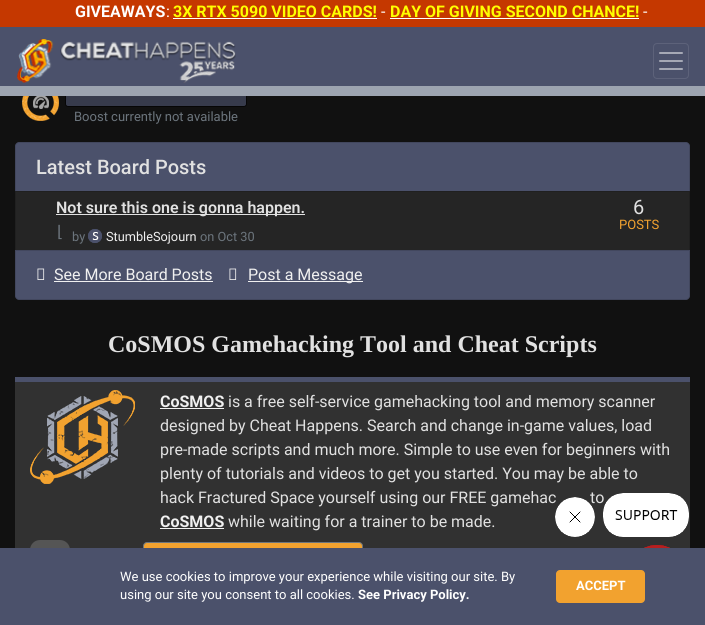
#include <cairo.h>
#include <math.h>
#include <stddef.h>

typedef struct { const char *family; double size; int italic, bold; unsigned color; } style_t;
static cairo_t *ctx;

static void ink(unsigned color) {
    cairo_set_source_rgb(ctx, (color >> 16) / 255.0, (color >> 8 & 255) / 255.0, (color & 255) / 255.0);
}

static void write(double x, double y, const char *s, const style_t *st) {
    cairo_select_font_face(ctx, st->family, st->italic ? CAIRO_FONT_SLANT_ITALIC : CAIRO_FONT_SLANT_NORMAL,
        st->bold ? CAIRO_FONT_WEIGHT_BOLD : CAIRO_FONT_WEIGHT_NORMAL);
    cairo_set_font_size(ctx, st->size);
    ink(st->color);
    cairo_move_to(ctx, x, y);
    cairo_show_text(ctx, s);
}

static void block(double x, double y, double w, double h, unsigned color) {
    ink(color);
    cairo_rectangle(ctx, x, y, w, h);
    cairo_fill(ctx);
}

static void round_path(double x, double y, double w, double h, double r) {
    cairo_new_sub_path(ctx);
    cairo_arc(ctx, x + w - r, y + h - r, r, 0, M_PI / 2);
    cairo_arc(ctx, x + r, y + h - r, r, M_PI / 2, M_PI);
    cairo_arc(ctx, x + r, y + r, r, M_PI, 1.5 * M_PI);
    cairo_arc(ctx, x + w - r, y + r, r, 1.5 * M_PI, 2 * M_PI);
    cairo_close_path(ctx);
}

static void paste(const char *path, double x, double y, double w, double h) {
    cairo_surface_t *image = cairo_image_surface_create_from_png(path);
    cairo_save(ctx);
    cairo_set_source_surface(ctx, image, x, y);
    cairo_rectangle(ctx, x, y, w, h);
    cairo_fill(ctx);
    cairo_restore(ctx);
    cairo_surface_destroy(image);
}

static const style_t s1 = {"Roboto", 16, 0, 1, 0xffffff};
static const style_t s2 = {"Roboto", 16, 0, 0, 0xffffff};
static const style_t s3 = {"Roboto", 16, 0, 1, 0xffff00};
static const style_t s4 = {"Roboto", 13, 0, 0, 0x6c757d};
static const style_t s5 = {"Roboto Medium", 20, 0, 0, 0xe1e1e1};
static const style_t s6 = {"Roboto SemiBold", 16, 0, 0, 0xe1e1e1};
static const style_t s7 = {"DejaVu Sans", 16, 0, 0, 0x6c757d};
static const style_t s8 = {"Roboto", 12.75, 0, 0, 0x6c757d};
static const style_t s9 = {"Roboto", 12.75, 0, 0, 0xf0f0f0};
static const style_t s10 = {"Roboto", 20, 0, 0, 0xe1e1e1};
static const style_t s11 = {"Roboto", 13, 0, 0, 0xf2a22f};
static const style_t s12 = {"Roboto", 16, 0, 0, 0xf0f0f0};
static const style_t s13 = {"Liberation Serif", 24, 0, 1, 0xe1e1e1};
static const style_t s14 = {"Roboto", 16, 0, 1, 0xf0f0f0};
static const style_t s15 = {"Roboto", 16, 0, 0, 0xe1e1e1};
static const style_t s16 = {"Roboto", 13, 0, 0, 0xffffff};
static const style_t s17 = {"Roboto", 13, 0, 1, 0xffffff};

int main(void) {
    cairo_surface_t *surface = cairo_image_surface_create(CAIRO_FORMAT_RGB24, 705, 625);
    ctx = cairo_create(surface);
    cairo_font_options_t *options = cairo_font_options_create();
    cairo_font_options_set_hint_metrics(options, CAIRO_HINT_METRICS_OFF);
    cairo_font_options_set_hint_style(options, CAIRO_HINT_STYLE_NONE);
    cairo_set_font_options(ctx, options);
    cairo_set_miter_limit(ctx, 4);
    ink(0x111111);
    cairo_paint(ctx);
    block(0, 0, 705, 27, 0xc53800);
    write(75, 17, "GIVEAWAYS", &s1);
    write(166, 17, ":", &s2);
    write(173, 17, "3X RTX 5090 VIDEO CARDS!", &s3);
    block(173, 18, 204, 1, 0xffffff);
    write(381, 17, "-", &s2);
    write(390, 17, "DAY OF GIVING SECOND CHANCE!", &s3);
    block(390, 18, 249, 1, 0xffffff);
    write(643, 17, "-", &s2);
    ink(0x373b4c);
    round_path(65.5, 84.5, 181, 22, 2.5);
    cairo_fill_preserve(ctx);
    ink(0x060606);
    cairo_set_line_width(ctx, 1);
    cairo_stroke(ctx);
    block(0, 27, 705, 59, 0x4b516b);
    block(0, 86, 705, 10, 0x9da4b0);
    paste("pic1.png", 17, 39, 219, 44);
    round_path(653.5, 43.5, 35, 35, 3.5);
    ink(0x5d627a);
    cairo_stroke(ctx);
    paste("pic2.png", 659, 52, 24, 18);
    paste("pic3.png", 22, 96, 37, 25);
    write(74, 121, "Boost currently not available", &s4);
    ink(0x4b516b);
    cairo_new_path(ctx);
    cairo_move_to(ctx, 19, 142);
    cairo_line_to(ctx, 686, 142);
    cairo_curve_to(ctx, 688, 142, 690, 144, 690, 146);
    cairo_line_to(ctx, 690, 192);
    cairo_line_to(ctx, 15, 192);
    cairo_line_to(ctx, 15, 146);
    cairo_curve_to(ctx, 15, 144, 17, 142, 19, 142);
    cairo_close_path(ctx);
    cairo_fill(ctx);
    cairo_new_path(ctx);
    cairo_move_to(ctx, 19, 142.5);
    cairo_line_to(ctx, 686, 142.5);
    cairo_curve_to(ctx, 688, 142.5, 689.5, 144, 689.5, 146);
    cairo_line_to(ctx, 689.5, 191.5);
    cairo_line_to(ctx, 15.5, 191.5);
    cairo_line_to(ctx, 15.5, 146);
    cairo_curve_to(ctx, 15.5, 144, 17, 142.5, 19, 142.5);
    cairo_close_path(ctx);
    cairo_set_source_rgba(ctx, 0, 0, 0, 0.12);
    cairo_stroke(ctx);
    write(36, 174, "Latest Board Posts", &s5);
    ink(0x252525);
    cairo_rectangle(ctx, 15.5, 191.5, 674, 59);
    cairo_fill_preserve(ctx);
    ink(0x202020);
    cairo_stroke(ctx);
    block(56, 214, 249, 1, 0xe1e1e1);
    write(56, 213, "Not sure this one is gonna happen.", &s6);
    write(57, 237, "⌊", &s7);
    write(72, 241, "by", &s8);
    paste("pic4.png", 88, 229, 14, 14);
    write(106, 241, "StumbleSojourn", &s9);
    write(200, 241, "on Oct 30", &s8);
    write(633, 214, "6", &s10);
    write(619, 229, "POSTS", &s11);
    ink(0x4b516b);
    cairo_new_path(ctx);
    cairo_move_to(ctx, 15, 250);
    cairo_line_to(ctx, 690, 250);
    cairo_line_to(ctx, 690, 296);
    cairo_curve_to(ctx, 690, 298, 688, 300, 686, 300);
    cairo_line_to(ctx, 19, 300);
    cairo_curve_to(ctx, 17, 300, 15, 298, 15, 296);
    cairo_close_path(ctx);
    cairo_fill(ctx);
    cairo_new_path(ctx);
    cairo_move_to(ctx, 15.5, 250.5);
    cairo_line_to(ctx, 689.5, 250.5);
    cairo_line_to(ctx, 689.5, 296);
    cairo_curve_to(ctx, 689.5, 298, 688, 299.5, 686, 299.5);
    cairo_line_to(ctx, 19, 299.5);
    cairo_curve_to(ctx, 17, 299.5, 15.5, 298, 15.5, 296);
    cairo_close_path(ctx);
    cairo_set_source_rgba(ctx, 0, 0, 0, 0.12);
    cairo_stroke(ctx);
    paste("pic5.png", 37, 268, 8, 12);
    write(54, 280, "See More Board Posts", &s12);
    block(54, 281, 159, 1, 0xf0f0f0);
    paste("pic5.png", 229, 268, 8, 12);
    block(248, 281, 115, 1, 0xf0f0f0);
    write(248, 280, "Post a Message", &s12);
    write(108, 352, "CoSMOS Gamehacking Tool and Cheat Scripts", &s13);
    block(15, 382, 675, 166, 0x313131);
    block(15, 377, 675, 5, 0x4b516b);
    paste("pic6.png", 30, 390, 105, 94);
    write(160, 407, "CoSMOS", &s14);
    block(160, 408, 64, 1, 0xf0f0f0);
    write(228, 407, "is a free self-service gamehacking tool and memory scanner", &s15);
    write(160, 431, "designed by Cheat Happens. Search and change in-game values, load", &s15);
    write(160, 455, "pre-made scripts and much more. Simple to use even for beginners with", &s15);
    write(160, 479, "plenty of tutorials and videos to get you started. You may be able to", &s15);
    write(160, 503, "hack Fractured Space yourself using our FREE gamehac", &s15);
    write(590, 503, "to", &s15);
    write(160, 527, "CoSMOS", &s14);
    block(160, 528, 64, 1, 0xf0f0f0);
    write(228, 527, "while waiting for a trainer to be made.", &s15);
    ink(0xf2a22f);
    round_path(143.5, 542.5, 219, 28, 3.5);
    cairo_fill_preserve(ctx);
    ink(0x6c757d);
    cairo_stroke(ctx);
    paste("pic7.png", 555, 497, 40, 40);
    paste("pic8.png", 603, 493, 86, 44);
    paste("pic9.png", 644, 545, 26, 3);
    ink(0x555555);
    round_path(30, 540, 40, 65, 10);
    cairo_fill(ctx);
    block(0, 548, 705, 77, 0x4b516b);
    write(120, 581, "We use cookies to improve your experience while visiting our site. By", &s16);
    write(120, 599, "using our site you consent to all cookies.", &s16);
    write(358, 599, "See Privacy Policy.", &s17);
    ink(0xf2a22f);
    round_path(556, 570, 89, 33, 4);
    cairo_fill(ctx);
    write(576, 590, "ACCEPT", &s17);
    cairo_surface_write_to_png(surface, "screenshot.png");
    cairo_font_options_destroy(options);
    cairo_destroy(ctx);
    cairo_surface_destroy(surface);
    return 0;
}
